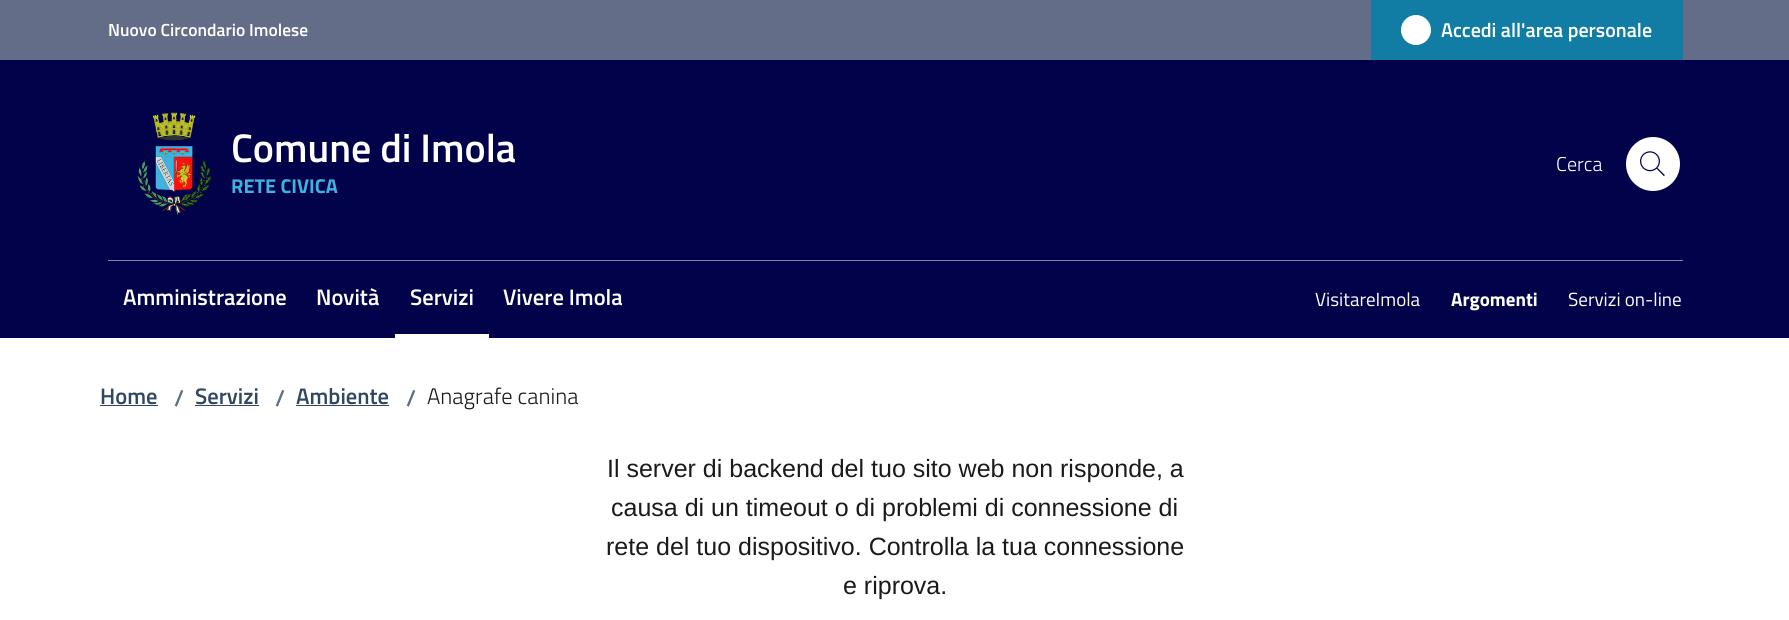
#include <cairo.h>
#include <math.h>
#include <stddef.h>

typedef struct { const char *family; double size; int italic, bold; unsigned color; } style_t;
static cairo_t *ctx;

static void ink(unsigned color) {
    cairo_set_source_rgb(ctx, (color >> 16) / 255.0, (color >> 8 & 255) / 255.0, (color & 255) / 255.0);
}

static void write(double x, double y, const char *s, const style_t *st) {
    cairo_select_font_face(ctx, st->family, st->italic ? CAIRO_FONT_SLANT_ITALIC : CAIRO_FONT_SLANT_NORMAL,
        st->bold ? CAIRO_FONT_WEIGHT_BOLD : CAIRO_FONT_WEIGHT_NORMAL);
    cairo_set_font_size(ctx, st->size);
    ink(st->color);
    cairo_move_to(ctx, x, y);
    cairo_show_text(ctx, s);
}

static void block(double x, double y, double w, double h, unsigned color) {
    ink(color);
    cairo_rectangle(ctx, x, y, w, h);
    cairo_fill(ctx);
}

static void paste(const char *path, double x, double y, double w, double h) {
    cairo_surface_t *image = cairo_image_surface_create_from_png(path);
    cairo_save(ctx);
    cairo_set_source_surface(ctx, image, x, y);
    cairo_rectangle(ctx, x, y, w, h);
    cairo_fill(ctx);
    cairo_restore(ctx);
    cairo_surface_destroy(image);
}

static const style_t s1 = {"Titillium Web SemiBold", 17.5, 0, 0, 0xffffff};
static const style_t s2 = {"Titillium Web SemiBold", 20, 0, 0, 0xffffff};
static const style_t s3 = {"Titillium Web SemiBold", 40, 0, 0, 0xffffff};
static const style_t s4 = {"Titillium Web", 20, 0, 1, 0x40b2dd};
static const style_t s5 = {"Titillium Web Light", 20, 0, 0, 0xffffff};
static const style_t s6 = {"Titillium Web SemiBold", 22.5, 0, 0, 0xffffff};
static const style_t s7 = {"Titillium Web", 19, 0, 0, 0xffffff};
static const style_t s8 = {"Titillium Web", 19, 0, 1, 0xffffff};
static const style_t s9 = {"Titillium Web SemiBold", 22.5, 0, 0, 0x30475f};
static const style_t s10 = {"Titillium Web SemiBold", 22.5, 0, 0, 0x5d6e82};
static const style_t s11 = {"Titillium Web Light", 22.5, 0, 0, 0x1a1a1a};
static const style_t s12 = {"Liberation Sans", 25, 0, 0, 0x1a1a1a};

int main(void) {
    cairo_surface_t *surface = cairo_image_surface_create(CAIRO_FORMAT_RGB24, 1789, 620);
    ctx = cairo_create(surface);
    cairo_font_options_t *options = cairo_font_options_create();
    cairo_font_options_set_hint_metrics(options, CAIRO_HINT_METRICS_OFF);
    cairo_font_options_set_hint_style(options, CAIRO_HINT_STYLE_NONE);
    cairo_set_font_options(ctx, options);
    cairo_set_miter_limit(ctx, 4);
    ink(0xffffff);
    cairo_paint(ctx);
    block(0, 0, 1789, 60, 0x636d88);
    write(108, 36, "Nuovo Circondario Imolese", &s1);
    block(1371, 0, 312, 60, 0x117da5);
    ink(0xffffff);
    cairo_new_path(ctx);
    cairo_arc(ctx, 1416, 30, 15, 0, 2 * M_PI);
    cairo_fill(ctx);
    write(1441, 37, "Accedi all'area personale", &s2);
    block(0, 60, 1789, 278, 0x02024a);
    paste("pic1.png", 137, 112, 75, 103);
    write(231, 162, "Comune di Imola", &s3);
    write(231, 193, "RETE CIVICA", &s4);
    write(1556, 171, "Cerca", &s5);
    cairo_new_path(ctx);
    cairo_arc(ctx, 1653, 164, 28.5, 0, 2 * M_PI);
    cairo_fill_preserve(ctx);
    ink(0x02024a);
    cairo_set_line_width(ctx, 3);
    cairo_stroke(ctx);
    paste("pic2.png", 1640, 151, 25, 25);
    block(108, 260, 1575, 1, 0x8181a5);
    write(123, 305, "Amministrazione", &s6);
    write(316, 305, "Novità", &s6);
    block(395, 334, 94, 4, 0xffffff);
    write(410, 305, "Servizi", &s6);
    write(503, 305, "Vivere Imola", &s6);
    write(1315, 306, "VisitareImola", &s7);
    write(1451, 306, "Argomenti", &s8);
    write(1568, 306, "Servizi on-line", &s7);
    write(100, 404, "Home", &s9);
    block(100, 405, 58, 1, 0x30475f);
    write(174, 406, "/", &s10);
    write(195, 404, "Servizi", &s9);
    block(195, 405, 64, 1, 0x30475f);
    write(275, 406, "/", &s10);
    write(296, 404, "Ambiente", &s9);
    block(296, 405, 93, 1, 0x30475f);
    write(406, 406, "/", &s10);
    write(427, 404, "Anagrafe canina", &s11);
    write(607, 477, "Il server di backend del tuo sito web non risponde, a", &s12);
    write(611, 516, "causa di un timeout o di problemi di connessione di", &s12);
    write(606, 555, "rete del tuo dispositivo. Controlla la tua connessione", &s12);
    write(843, 594, "e riprova.", &s12);
    cairo_surface_write_to_png(surface, "screenshot.png");
    cairo_font_options_destroy(options);
    cairo_destroy(ctx);
    cairo_surface_destroy(surface);
    return 0;
}
